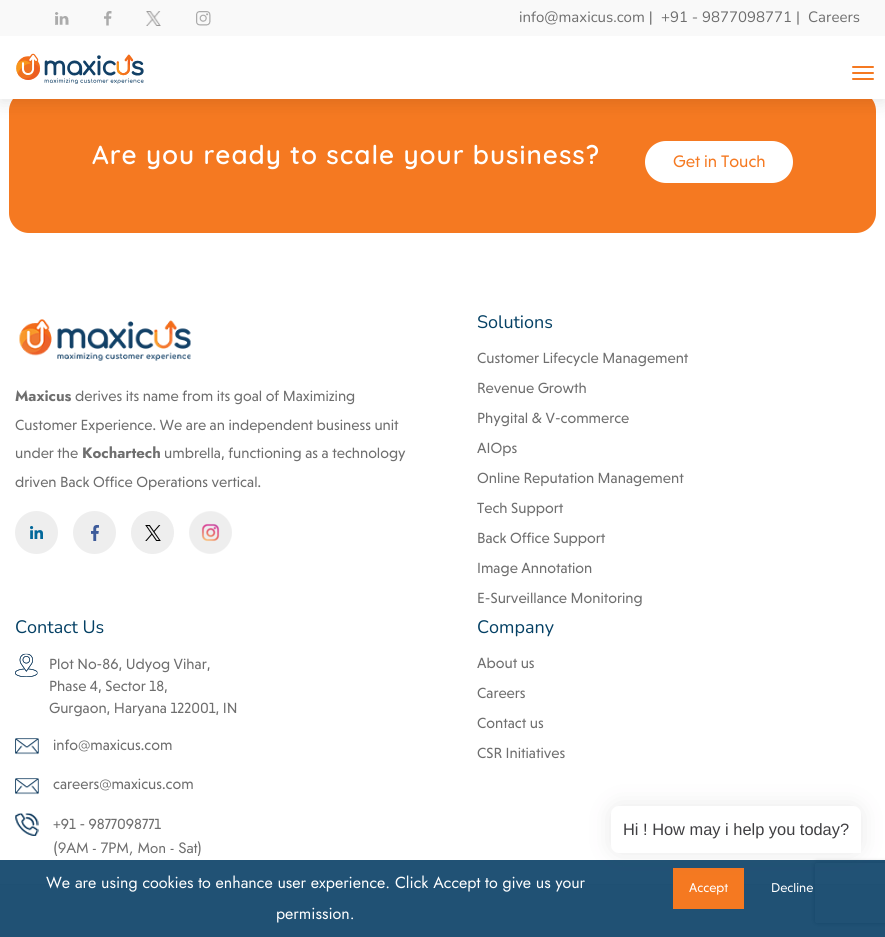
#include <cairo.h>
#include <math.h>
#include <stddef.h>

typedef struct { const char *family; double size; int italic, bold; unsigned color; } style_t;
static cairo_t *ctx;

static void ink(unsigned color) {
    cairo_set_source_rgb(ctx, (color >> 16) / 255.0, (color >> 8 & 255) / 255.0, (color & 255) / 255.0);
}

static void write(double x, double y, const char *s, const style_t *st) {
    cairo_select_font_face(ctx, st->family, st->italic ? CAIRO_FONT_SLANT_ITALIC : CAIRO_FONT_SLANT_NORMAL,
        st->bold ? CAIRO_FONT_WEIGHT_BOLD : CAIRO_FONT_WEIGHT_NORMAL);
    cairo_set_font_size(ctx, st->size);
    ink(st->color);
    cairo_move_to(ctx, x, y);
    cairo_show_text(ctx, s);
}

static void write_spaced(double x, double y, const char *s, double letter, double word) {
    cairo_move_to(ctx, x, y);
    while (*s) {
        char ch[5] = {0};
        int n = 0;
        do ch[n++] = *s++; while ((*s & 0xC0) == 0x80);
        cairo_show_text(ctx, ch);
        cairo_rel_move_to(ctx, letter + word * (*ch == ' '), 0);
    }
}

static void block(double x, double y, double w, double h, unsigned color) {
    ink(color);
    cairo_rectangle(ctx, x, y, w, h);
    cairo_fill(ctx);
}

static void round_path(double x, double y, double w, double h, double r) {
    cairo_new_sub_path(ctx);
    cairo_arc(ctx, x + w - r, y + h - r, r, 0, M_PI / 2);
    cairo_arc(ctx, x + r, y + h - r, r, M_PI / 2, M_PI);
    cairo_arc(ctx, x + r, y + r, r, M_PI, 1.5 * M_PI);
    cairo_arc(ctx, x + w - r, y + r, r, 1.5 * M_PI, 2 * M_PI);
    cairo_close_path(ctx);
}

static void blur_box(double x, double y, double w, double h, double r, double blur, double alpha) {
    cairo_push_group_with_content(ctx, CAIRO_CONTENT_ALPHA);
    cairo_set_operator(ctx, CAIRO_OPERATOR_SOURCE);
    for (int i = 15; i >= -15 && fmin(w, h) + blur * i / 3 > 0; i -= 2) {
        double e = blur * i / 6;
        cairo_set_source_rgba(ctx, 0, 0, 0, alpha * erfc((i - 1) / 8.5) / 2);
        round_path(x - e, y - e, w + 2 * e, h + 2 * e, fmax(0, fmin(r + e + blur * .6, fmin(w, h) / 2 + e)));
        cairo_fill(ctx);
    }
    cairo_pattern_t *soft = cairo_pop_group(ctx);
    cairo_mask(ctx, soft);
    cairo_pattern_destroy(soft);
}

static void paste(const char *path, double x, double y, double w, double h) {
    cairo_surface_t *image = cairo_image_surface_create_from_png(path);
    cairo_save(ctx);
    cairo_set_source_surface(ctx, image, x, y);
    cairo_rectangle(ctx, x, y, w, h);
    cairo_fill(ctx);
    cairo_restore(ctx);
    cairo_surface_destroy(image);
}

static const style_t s1 = {"Nunito ExtraLight", 15, 0, 0, 0x6e6e6e};
static const style_t s2 = {"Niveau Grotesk", 17, 0, 0, 0xf57921};
static const style_t s3 = {"Jost", 15, 0, 1, 0x6e6e6e};
static const style_t s4 = {"Niveau Grotesk", 15, 0, 0, 0x6e6e6e};
static const style_t s5 = {"Nunito ExtraLight", 18, 0, 0, 0x044064};
static const style_t s6 = {"Jost", 15, 0, 0, 0x6e6e6e};
static const style_t s7 = {"Liberation Sans", 16.4, 0, 0, 0x403f42};
static const style_t s8 = {"Jost", 16, 0, 0, 0xffffff};
static const style_t s9 = {"Niveau Grotesk", 13, 0, 0, 0xffffff};

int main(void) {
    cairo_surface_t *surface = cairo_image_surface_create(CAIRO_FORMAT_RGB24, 885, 937);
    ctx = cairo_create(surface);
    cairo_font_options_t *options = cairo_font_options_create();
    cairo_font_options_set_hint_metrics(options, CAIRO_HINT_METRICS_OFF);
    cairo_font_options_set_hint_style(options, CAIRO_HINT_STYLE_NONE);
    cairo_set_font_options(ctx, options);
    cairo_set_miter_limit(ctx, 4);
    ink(0xffffff);
    cairo_paint(ctx);
    ink(0xf57921);
    round_path(9, 91, 867, 142, 20);
    cairo_fill(ctx);
    ink(0x000000);
    blur_box(0, 38, 885, 65, 0, 8.5, 0.1);
    block(0, 36, 885, 63, 0xffffff);
    block(0, 0, 885, 36, 0xf9f9f9);
    paste("pic1.png", 55, 12, 14, 13);
    paste("pic2.png", 104, 11, 8, 15);
    paste("pic3.png", 146, 11, 15, 15);
    paste("pic4.png", 196, 11, 15, 15);
    write(519, 22, "info@maxicus.com |", &s1);
    write(661, 22, "+91 - 9877098771 |", &s1);
    write(808, 22, "Careers", &s1);
    paste("pic5.png", 16, 53, 128, 31);
    ink(0xf57921);
    round_path(852, 66, 22, 2, 1);
    cairo_fill(ctx);
    round_path(852, 72, 22, 2, 1);
    cairo_fill(ctx);
    round_path(852, 78, 22, 2, 1);
    cairo_fill(ctx);
    cairo_select_font_face(ctx, "Quicksand SemiBold", CAIRO_FONT_SLANT_NORMAL, CAIRO_FONT_WEIGHT_NORMAL);
    cairo_set_font_size(ctx, 26);
    ink(0xffffff);
    write_spaced(92, 164, "Are you ready to scale your business?", 1, 0);
    round_path(646, 142, 146, 40, 20);
    cairo_fill_preserve(ctx);
    cairo_stroke(ctx);
    write(673, 167, "Get in Touch", &s2);
    paste("pic6.png", 19, 319, 172, 42);
    write(15, 401, "Maxicus", &s3);
    write(75, 401, "derives its name from its goal of Maximizing", &s4);
    write(15, 430, "Customer Experience. We are an independent business unit", &s4);
    write(15, 458, "under the", &s4);
    write(82, 458, "Kochartech", &s3);
    write(164, 458, "umbrella, functioning as a technology", &s4);
    write(15, 487, "driven Back Office Operations vertical.", &s4);
    paste("pic7.png", 15, 511, 43, 43);
    paste("pic8.png", 73, 511, 43, 43);
    paste("pic9.png", 131, 511, 43, 43);
    paste("pic10.png", 189, 511, 43, 43);
    write(477, 328, "Solutions", &s5);
    write(477, 363, "Customer Lifecycle Management", &s4);
    write(477, 393, "Revenue Growth", &s4);
    write(477, 423, "Phygital & V-commerce", &s4);
    write(477, 453, "AIOps", &s4);
    write(477, 483, "Online Reputation Management", &s4);
    write(477, 513, "Tech Support", &s4);
    write(477, 543, "Back Office Support", &s4);
    write(477, 573, "Image Annotation", &s4);
    write(477, 603, "E-Surveillance Monitoring", &s4);
    write(15, 633, "Contact Us", &s5);
    paste("pic11.png", 15, 653, 23, 24);
    write(49, 669, "Plot No-86, Udyog Vihar,", &s4);
    write(49, 691, "Phase 4, Sector 18,", &s4);
    write(49, 713, "Gurgaon, Haryana 122001, IN", &s4);
    paste("pic12.png", 15, 738, 24, 17);
    write(53, 750, "info@maxicus.com", &s4);
    paste("pic12.png", 15, 778, 24, 17);
    write(53, 789, "careers@maxicus.com", &s4);
    paste("pic13.png", 15, 813, 24, 23);
    write(53, 829, "+91 - 9877098771", &s4);
    write(53, 853, "(9AM - 7PM, Mon - Sat)", &s6);
    write(477, 633, "Company", &s5);
    write(477, 668, "About us", &s4);
    write(477, 698, "Careers", &s4);
    write(477, 728, "Contact us", &s4);
    write(477, 758, "CSR Initiatives", &s4);
    block(0, 885, 885, 52, 0xf7f7f7);
    block(0, 884, 885, 1, 0xeae8ef);
    cairo_save(ctx);
    cairo_set_fill_rule(ctx, CAIRO_FILL_RULE_EVEN_ODD);
    cairo_new_path(ctx);
    cairo_move_to(ctx, 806, 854);
    cairo_line_to(ctx, 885, 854);
    cairo_line_to(ctx, 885, 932);
    cairo_line_to(ctx, 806, 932);
    cairo_close_path(ctx);
    cairo_move_to(ctx, 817, 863);
    cairo_line_to(ctx, 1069, 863);
    cairo_curve_to(ctx, 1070, 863, 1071, 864, 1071, 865);
    cairo_line_to(ctx, 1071, 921);
    cairo_curve_to(ctx, 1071, 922, 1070, 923, 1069, 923);
    cairo_line_to(ctx, 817, 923);
    cairo_curve_to(ctx, 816, 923, 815, 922, 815, 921);
    cairo_line_to(ctx, 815, 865);
    cairo_curve_to(ctx, 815, 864, 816, 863, 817, 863);
    cairo_close_path(ctx);
    cairo_clip(ctx);
    ink(0x808080);
    blur_box(815, 863, 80, 60, 2, 2.5, 1);
    cairo_restore(ctx);
    cairo_set_source_rgba(ctx, 0.035, 0.251, 0.4, 0.9);
    cairo_rectangle(ctx, 0, 860, 885, 77);
    cairo_fill(ctx);
    block(673, 868, 71, 41, 0xf57921);
    ink(0x403f42);
    blur_box(611, 806, 250, 47, 8, 12, 0.12);
    ink(0xffffff);
    cairo_new_path(ctx);
    cairo_move_to(ctx, 619, 806);
    cairo_line_to(ctx, 853, 806);
    cairo_curve_to(ctx, 857.5, 806, 861, 809.5, 861, 814);
    cairo_line_to(ctx, 861, 853);
    cairo_line_to(ctx, 619, 853);
    cairo_curve_to(ctx, 614.5, 853, 611, 849.5, 611, 845);
    cairo_line_to(ctx, 611, 814);
    cairo_curve_to(ctx, 611, 809.5, 614.5, 806, 619, 806);
    cairo_close_path(ctx);
    cairo_fill(ctx);
    write(623, 835, "Hi ! How may i help you today?", &s7);
    write(46, 888, "We are using cookies to enhance user experience. Click Accept to give us your", &s8);
    write(276, 919, "permission.", &s8);
    write(689, 892, "Accept", &s9);
    write(771, 892, "Decline", &s9);
    cairo_surface_write_to_png(surface, "screenshot.png");
    cairo_font_options_destroy(options);
    cairo_destroy(ctx);
    cairo_surface_destroy(surface);
    return 0;
}
